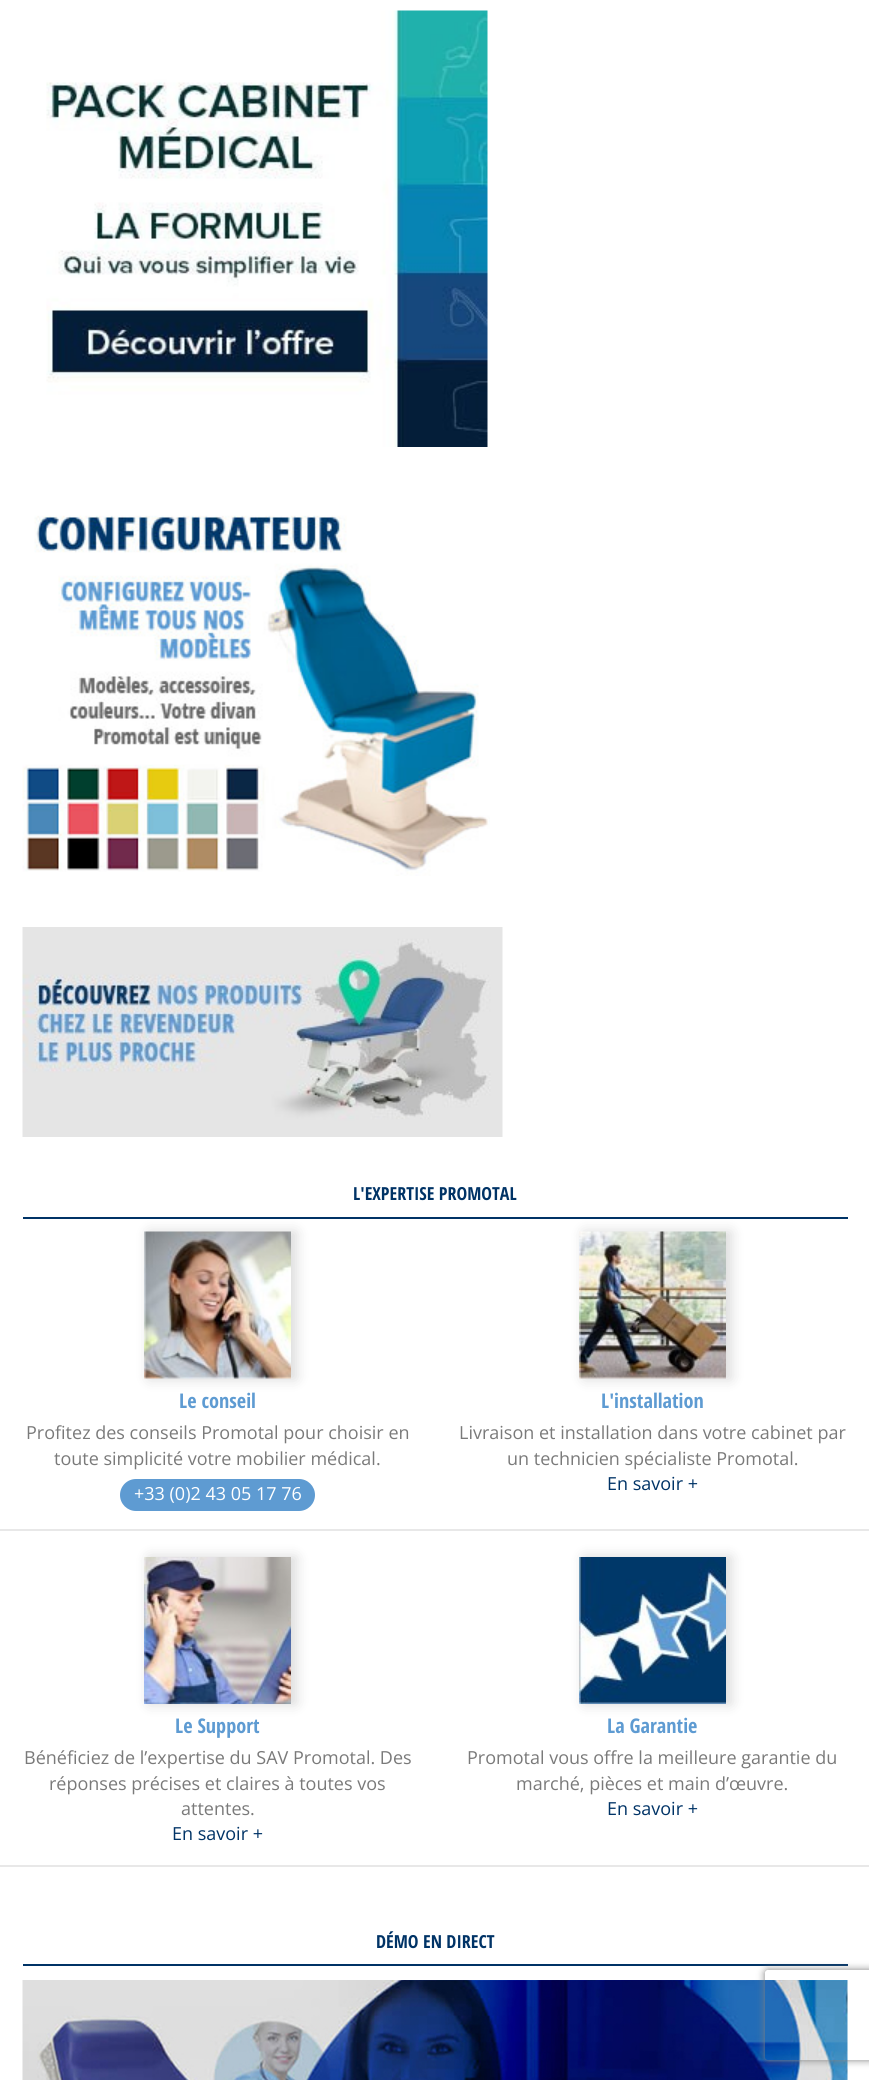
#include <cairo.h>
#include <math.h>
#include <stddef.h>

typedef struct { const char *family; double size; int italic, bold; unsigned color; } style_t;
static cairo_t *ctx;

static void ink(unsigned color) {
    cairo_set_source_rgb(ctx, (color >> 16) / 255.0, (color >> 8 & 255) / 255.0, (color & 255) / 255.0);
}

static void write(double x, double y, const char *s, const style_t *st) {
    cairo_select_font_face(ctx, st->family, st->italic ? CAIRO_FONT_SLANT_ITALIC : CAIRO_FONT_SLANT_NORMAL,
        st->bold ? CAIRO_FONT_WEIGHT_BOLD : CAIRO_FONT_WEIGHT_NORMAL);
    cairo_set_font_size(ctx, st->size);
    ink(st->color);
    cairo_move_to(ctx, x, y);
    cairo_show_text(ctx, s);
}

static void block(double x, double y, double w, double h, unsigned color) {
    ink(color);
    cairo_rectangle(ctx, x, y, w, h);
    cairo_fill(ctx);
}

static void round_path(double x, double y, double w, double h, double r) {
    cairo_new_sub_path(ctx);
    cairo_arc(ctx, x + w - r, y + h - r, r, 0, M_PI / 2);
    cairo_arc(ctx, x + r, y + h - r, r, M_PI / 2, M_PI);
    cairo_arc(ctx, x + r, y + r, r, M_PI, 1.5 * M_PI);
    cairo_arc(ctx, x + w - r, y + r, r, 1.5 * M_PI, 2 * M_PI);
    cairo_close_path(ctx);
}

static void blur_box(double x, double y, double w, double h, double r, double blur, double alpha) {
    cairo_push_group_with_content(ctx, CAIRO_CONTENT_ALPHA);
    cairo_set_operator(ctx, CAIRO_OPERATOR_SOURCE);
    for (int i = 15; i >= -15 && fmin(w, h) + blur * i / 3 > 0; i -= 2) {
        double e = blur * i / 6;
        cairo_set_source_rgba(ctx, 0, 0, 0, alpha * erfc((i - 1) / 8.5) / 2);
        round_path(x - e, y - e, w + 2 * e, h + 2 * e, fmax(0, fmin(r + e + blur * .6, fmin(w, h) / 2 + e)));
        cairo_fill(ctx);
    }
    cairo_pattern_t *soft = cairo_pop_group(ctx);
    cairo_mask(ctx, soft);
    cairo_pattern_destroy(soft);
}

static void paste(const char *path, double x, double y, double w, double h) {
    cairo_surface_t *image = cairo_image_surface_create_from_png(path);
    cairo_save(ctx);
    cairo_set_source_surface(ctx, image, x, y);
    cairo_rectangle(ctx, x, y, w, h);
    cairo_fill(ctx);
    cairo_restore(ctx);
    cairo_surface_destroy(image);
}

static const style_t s1 = {"Open Sans Condensed", 18, 0, 1, 0x003366};
static const style_t s2 = {"Open Sans Condensed", 20.25, 0, 1, 0x5e9bd2};
static const style_t s3 = {"Open Sans", 18, 0, 0, 0x7a7a7a};
static const style_t s4 = {"Open Sans", 18, 0, 0, 0xffffff};
static const style_t s5 = {"Open Sans", 18, 0, 0, 0x003366};

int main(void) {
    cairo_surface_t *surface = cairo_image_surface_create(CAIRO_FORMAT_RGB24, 869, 2080);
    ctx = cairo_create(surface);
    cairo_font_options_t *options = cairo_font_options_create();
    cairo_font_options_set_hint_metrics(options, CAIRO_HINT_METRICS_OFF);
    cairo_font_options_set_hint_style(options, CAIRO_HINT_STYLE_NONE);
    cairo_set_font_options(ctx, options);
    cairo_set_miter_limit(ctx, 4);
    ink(0xffffff);
    cairo_paint(ctx);
    paste("pic1.png", 46, 10, 442, 437);
    paste("pic2.png", 22, 515, 468, 361);
    paste("pic3.png", 22, 927, 481, 210);
    block(23, 1217, 825, 2, 0x003366);
    write(353, 1200, "L'EXPERTISE PROMOTAL", &s1);
    block(0, 1529, 869, 2, 0xe8e8e8);
    ink(0x000000);
    blur_box(149, 1232, 147, 147, 0, 7, 0.15);
    paste("pic4.png", 144, 1231, 147, 148);
    write(179, 1408, "Le conseil", &s2);
    write(26, 1439, "Profitez des conseils Promotal pour choisir en", &s3);
    write(54, 1465, "toute simplicité votre mobilier médical.", &s3);
    ink(0x5e9bd2);
    round_path(120, 1479, 195, 32, 16);
    cairo_fill(ctx);
    write(134, 1500, "+33 (0)2 43 05 17 76", &s4);
    ink(0x000000);
    blur_box(584, 1232, 147, 147, 0, 7, 0.15);
    paste("pic5.png", 579, 1231, 147, 148);
    write(601, 1408, "L'installation", &s2);
    write(459, 1439, "Livraison et installation dans votre cabinet par", &s3);
    write(507, 1465, "un technicien spécialiste Promotal.", &s3);
    write(607, 1490, "En savoir +", &s5);
    block(0, 1865, 869, 2, 0xe8e8e8);
    ink(0x000000);
    blur_box(149, 1557, 147, 147, 0, 7, 0.15);
    paste("pic6.png", 144, 1557, 147, 147);
    write(175, 1733, "Le Support", &s2);
    write(24, 1764, "Bénéficiez de l’expertise du SAV Promotal. Des", &s3);
    write(49, 1790, "réponses précises et claires à toutes vos", &s3);
    write(181, 1815, "attentes.", &s3);
    write(172, 1840, "En savoir +", &s5);
    ink(0x000000);
    blur_box(584, 1557, 147, 147, 0, 7, 0.15);
    paste("pic7.png", 579, 1557, 147, 147);
    write(607, 1733, "La Garantie", &s2);
    write(467, 1764, "Promotal vous offre la meilleure garantie du", &s3);
    write(516, 1790, "marché, pièces et main d’œuvre.", &s3);
    write(607, 1815, "En savoir +", &s5);
    block(23, 1964, 825, 2, 0x003366);
    write(376, 1948, "DÉMO EN DIRECT", &s1);
    paste("pic8.png", 22, 1980, 826, 100);
    cairo_save(ctx);
    cairo_set_fill_rule(ctx, CAIRO_FILL_RULE_EVEN_ODD);
    cairo_new_path(ctx);
    cairo_move_to(ctx, 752, 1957);
    cairo_line_to(ctx, 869, 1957);
    cairo_line_to(ctx, 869, 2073);
    cairo_line_to(ctx, 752, 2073);
    cairo_close_path(ctx);
    cairo_move_to(ctx, 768, 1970);
    cairo_line_to(ctx, 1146, 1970);
    cairo_curve_to(ctx, 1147.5, 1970, 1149, 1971.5, 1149, 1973);
    cairo_line_to(ctx, 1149, 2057);
    cairo_curve_to(ctx, 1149, 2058.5, 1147.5, 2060, 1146, 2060);
    cairo_line_to(ctx, 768, 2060);
    cairo_curve_to(ctx, 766.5, 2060, 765, 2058.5, 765, 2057);
    cairo_line_to(ctx, 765, 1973);
    cairo_curve_to(ctx, 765, 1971.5, 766.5, 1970, 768, 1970);
    cairo_close_path(ctx);
    cairo_clip(ctx);
    ink(0x808080);
    blur_box(765, 1970, 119, 90, 3, 4, 1);
    cairo_restore(ctx);
    cairo_surface_write_to_png(surface, "screenshot.png");
    cairo_font_options_destroy(options);
    cairo_destroy(ctx);
    cairo_surface_destroy(surface);
    return 0;
}
